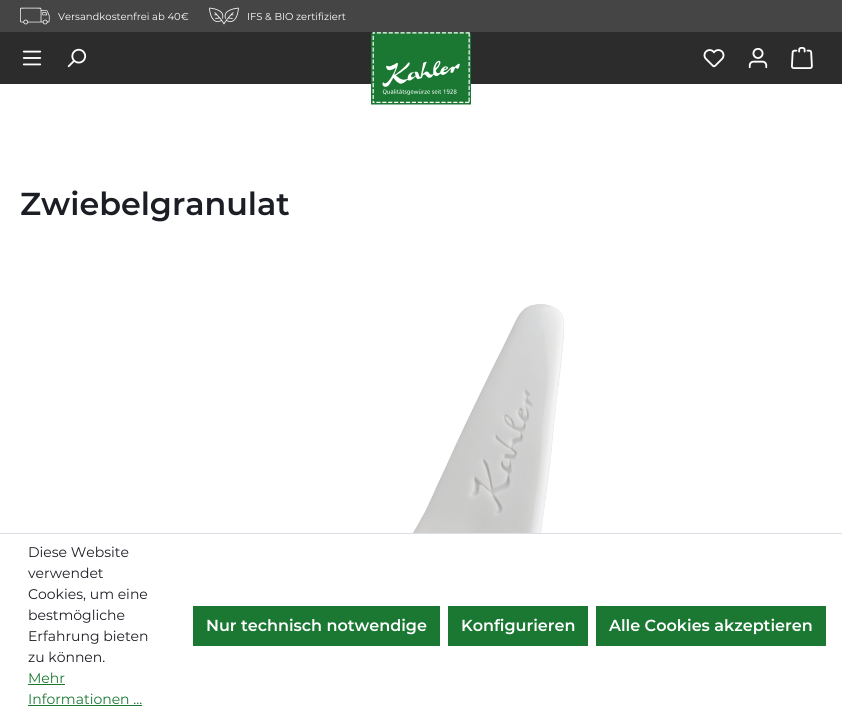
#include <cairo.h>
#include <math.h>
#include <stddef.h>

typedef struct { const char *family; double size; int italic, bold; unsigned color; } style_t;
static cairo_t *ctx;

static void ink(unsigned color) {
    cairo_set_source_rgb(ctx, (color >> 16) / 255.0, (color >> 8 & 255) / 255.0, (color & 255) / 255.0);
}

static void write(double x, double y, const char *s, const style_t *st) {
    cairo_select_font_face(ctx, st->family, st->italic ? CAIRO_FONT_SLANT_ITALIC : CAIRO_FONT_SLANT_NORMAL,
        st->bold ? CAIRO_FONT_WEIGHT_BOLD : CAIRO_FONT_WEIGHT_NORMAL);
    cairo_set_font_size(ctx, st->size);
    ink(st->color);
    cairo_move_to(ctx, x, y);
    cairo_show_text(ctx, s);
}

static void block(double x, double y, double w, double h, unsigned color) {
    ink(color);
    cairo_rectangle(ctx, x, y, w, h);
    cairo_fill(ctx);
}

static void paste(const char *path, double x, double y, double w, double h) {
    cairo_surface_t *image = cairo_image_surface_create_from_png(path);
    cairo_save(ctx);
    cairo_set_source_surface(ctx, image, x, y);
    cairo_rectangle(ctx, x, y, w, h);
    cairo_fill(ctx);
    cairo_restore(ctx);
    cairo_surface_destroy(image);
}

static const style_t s1 = {"Montserrat", 10, 0, 0, 0xffffff};
static const style_t s2 = {"Montserrat SemiBold", 31.75, 0, 0, 0x1c1e25};
static const style_t s3 = {"Montserrat", 14, 0, 0, 0x1c1e25};
static const style_t s4 = {"Montserrat", 14, 0, 0, 0x1a7833};
static const style_t s5 = {"Montserrat SemiBold", 16, 0, 0, 0xffffff};

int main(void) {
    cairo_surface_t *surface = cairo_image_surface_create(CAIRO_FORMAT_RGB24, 842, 718);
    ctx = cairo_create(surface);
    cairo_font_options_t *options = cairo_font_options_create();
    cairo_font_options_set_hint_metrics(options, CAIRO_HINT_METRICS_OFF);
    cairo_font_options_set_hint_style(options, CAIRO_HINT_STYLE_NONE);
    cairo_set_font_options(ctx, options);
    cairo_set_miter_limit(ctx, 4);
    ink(0xffffff);
    cairo_paint(ctx);
    block(0, 0, 842, 32, 0x454546);
    paste("pic1.png", 20, 7, 30, 18);
    write(58, 20, "Versandkostenfrei ab 40€", &s1);
    paste("pic2.png", 209, 7, 30, 18);
    write(247, 20, "IFS & BIO zertifiziert", &s1);
    block(0, 32, 842, 52, 0x2c2c2c);
    paste("pic3.png", 22, 50, 20, 16);
    paste("pic4.png", 67, 48, 20, 20);
    paste("pic5.png", 371, 32, 100, 73);
    paste("pic6.png", 703, 49, 22, 19);
    paste("pic7.png", 748, 47, 20, 22);
    paste("pic8.png", 791, 47, 22, 22);
    write(20, 215, "Zwiebelgranulat", &s2);
    paste("pic9.png", 277, 304, 288, 229);
    block(0, 533, 842, 1, 0xdadfe5);
    write(28, 557, "Diese Website", &s3);
    write(28, 578, "verwendet", &s3);
    write(28, 599, "Cookies, um eine", &s3);
    write(28, 620, "bestmögliche", &s3);
    write(28, 641, "Erfahrung bieten", &s3);
    write(28, 662, "zu können.", &s3);
    write(28, 683, "Mehr", &s4);
    block(28, 684, 37, 1, 0x1a7833);
    write(28, 704, "Informationen ...", &s4);
    block(28, 705, 114, 1, 0x1a7833);
    block(193, 606, 247, 40, 0x1a7833);
    write(206, 631, "Nur technisch notwendige", &s5);
    block(448, 606, 140, 40, 0x1a7833);
    write(461, 631, "Konfigurieren", &s5);
    block(596, 606, 230, 40, 0x1a7833);
    write(609, 631, "Alle Cookies akzeptieren", &s5);
    cairo_surface_write_to_png(surface, "screenshot.png");
    cairo_font_options_destroy(options);
    cairo_destroy(ctx);
    cairo_surface_destroy(surface);
    return 0;
}
